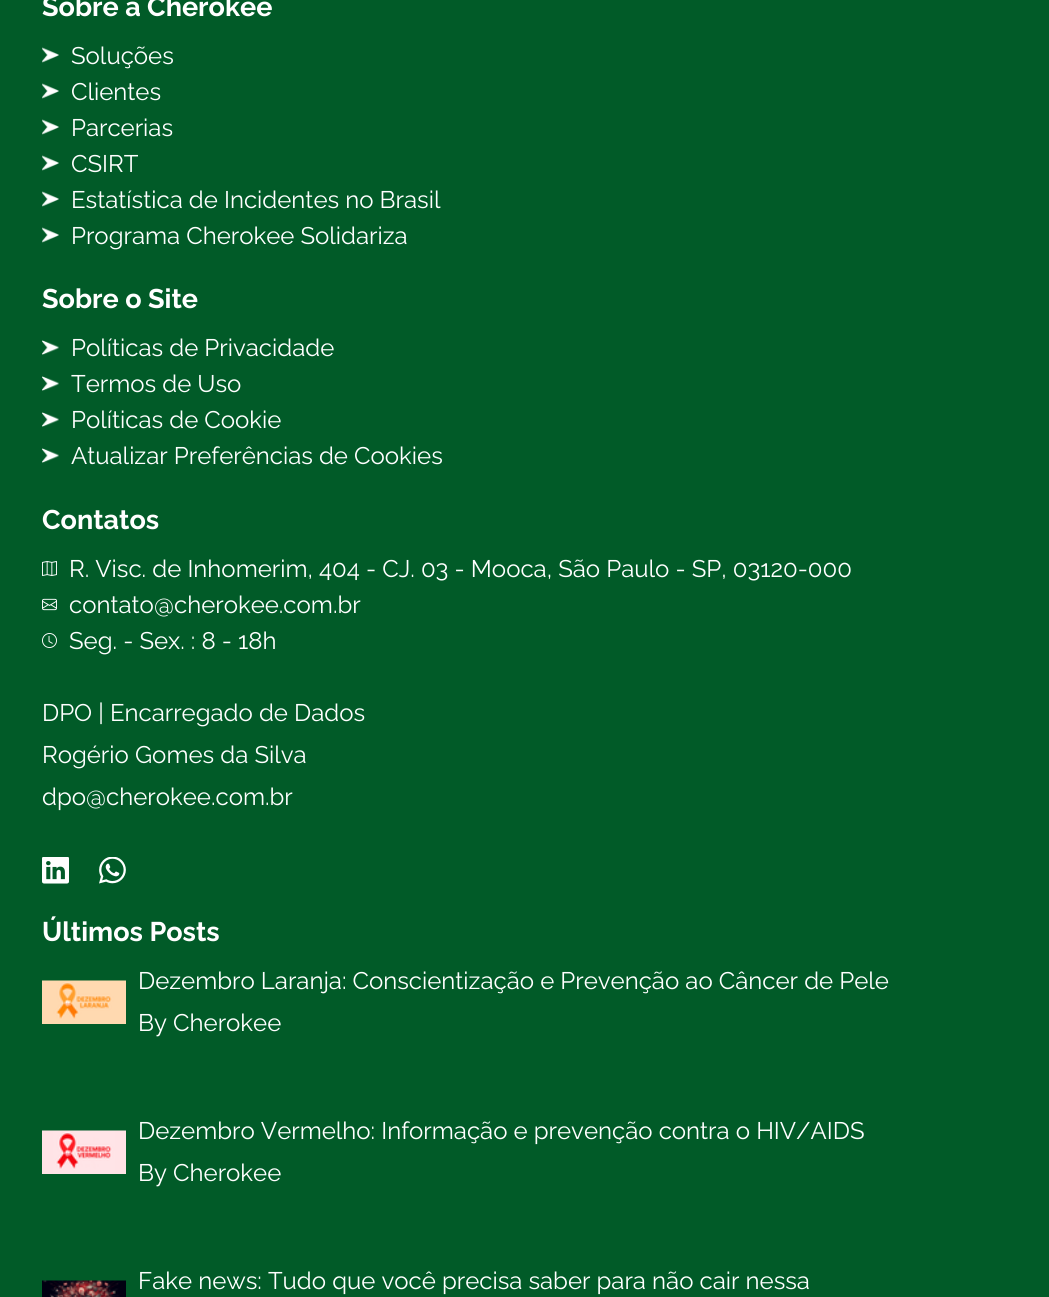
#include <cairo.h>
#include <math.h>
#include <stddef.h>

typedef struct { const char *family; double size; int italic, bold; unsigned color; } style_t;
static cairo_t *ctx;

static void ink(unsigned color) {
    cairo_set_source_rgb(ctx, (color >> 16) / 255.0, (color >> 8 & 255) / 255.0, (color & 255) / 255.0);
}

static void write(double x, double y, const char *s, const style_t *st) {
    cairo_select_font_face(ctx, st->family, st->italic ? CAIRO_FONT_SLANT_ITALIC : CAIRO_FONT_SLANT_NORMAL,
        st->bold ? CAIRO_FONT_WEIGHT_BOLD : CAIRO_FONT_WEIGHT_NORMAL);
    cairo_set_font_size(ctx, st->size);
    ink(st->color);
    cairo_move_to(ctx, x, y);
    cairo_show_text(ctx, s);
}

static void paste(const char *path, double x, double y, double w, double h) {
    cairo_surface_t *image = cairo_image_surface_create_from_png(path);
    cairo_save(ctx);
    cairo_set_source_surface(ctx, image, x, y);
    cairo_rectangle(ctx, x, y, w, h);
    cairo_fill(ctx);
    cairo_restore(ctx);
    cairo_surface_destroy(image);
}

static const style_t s1 = {"Raleway", 27, 0, 1, 0xffffff};
static const style_t s2 = {"Raleway", 24, 0, 0, 0xffffff};

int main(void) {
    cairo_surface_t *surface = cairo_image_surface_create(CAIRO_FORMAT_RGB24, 1049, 1297);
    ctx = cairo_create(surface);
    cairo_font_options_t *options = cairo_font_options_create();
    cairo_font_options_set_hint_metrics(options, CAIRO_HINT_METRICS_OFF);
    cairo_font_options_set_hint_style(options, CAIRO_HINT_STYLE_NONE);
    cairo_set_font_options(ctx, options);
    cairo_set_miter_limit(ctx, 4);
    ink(0x015b28);
    cairo_paint(ctx);
    write(42, 16, "Sobre a Cherokee", &s1);
    paste("pic1.png", 42, 47, 17, 16);
    write(71, 64, "Soluções", &s2);
    paste("pic1.png", 42, 83, 17, 16);
    write(71, 100, "Clientes", &s2);
    paste("pic1.png", 42, 119, 17, 16);
    write(71, 136, "Parcerias", &s2);
    paste("pic1.png", 42, 155, 17, 16);
    write(71, 172, "CSIRT", &s2);
    paste("pic1.png", 42, 191, 17, 16);
    write(71, 208, "Estatística de Incidentes no Brasil", &s2);
    paste("pic1.png", 42, 227, 17, 16);
    write(71, 244, "Programa Cherokee Solidariza", &s2);
    write(42, 308, "Sobre o Site", &s1);
    paste("pic2.png", 42, 340, 17, 15);
    write(71, 356, "Políticas de Privacidade", &s2);
    paste("pic2.png", 42, 376, 17, 15);
    write(71, 392, "Termos de Uso", &s2);
    paste("pic2.png", 42, 412, 17, 15);
    write(71, 428, "Políticas de Cookie", &s2);
    paste("pic2.png", 42, 448, 17, 15);
    write(71, 464, "Atualizar Preferências de Cookies", &s2);
    write(42, 529, "Contatos", &s1);
    paste("pic3.png", 42, 561, 15, 15);
    write(69, 577, "R. Visc. de Inhomerim, 404 - CJ. 03 - Mooca, São Paulo - SP, 03120-000", &s2);
    paste("pic4.png", 42, 598, 15, 13);
    write(69, 613, "contato@cherokee.com.br", &s2);
    paste("pic5.png", 42, 633, 15, 15);
    write(69, 649, "Seg. - Sex. : 8 - 18h", &s2);
    write(42, 721, "DPO | Encarregado de Dados", &s2);
    write(42, 763, "Rogério Gomes da Silva", &s2);
    write(42, 805, "dpo@cherokee.com.br", &s2);
    paste("pic6.png", 42, 857, 27, 27);
    paste("pic7.png", 99, 857, 27, 27);
    write(42, 941, "Últimos Posts", &s1);
    paste("pic8.png", 42, 980, 84, 44);
    write(138, 989, "Dezembro Laranja: Conscientização e Prevenção ao Câncer de Pele", &s2);
    write(138, 1031, "By Cherokee", &s2);
    paste("pic9.png", 42, 1130, 84, 44);
    write(138, 1139, "Dezembro Vermelho: Informação e prevenção contra o HIV/AIDS", &s2);
    write(138, 1181, "By Cherokee", &s2);
    paste("pic10.png", 42, 1280, 84, 17);
    write(138, 1289, "Fake news: Tudo que você precisa saber para não cair nessa", &s2);
    cairo_surface_write_to_png(surface, "screenshot.png");
    cairo_font_options_destroy(options);
    cairo_destroy(ctx);
    cairo_surface_destroy(surface);
    return 0;
}
